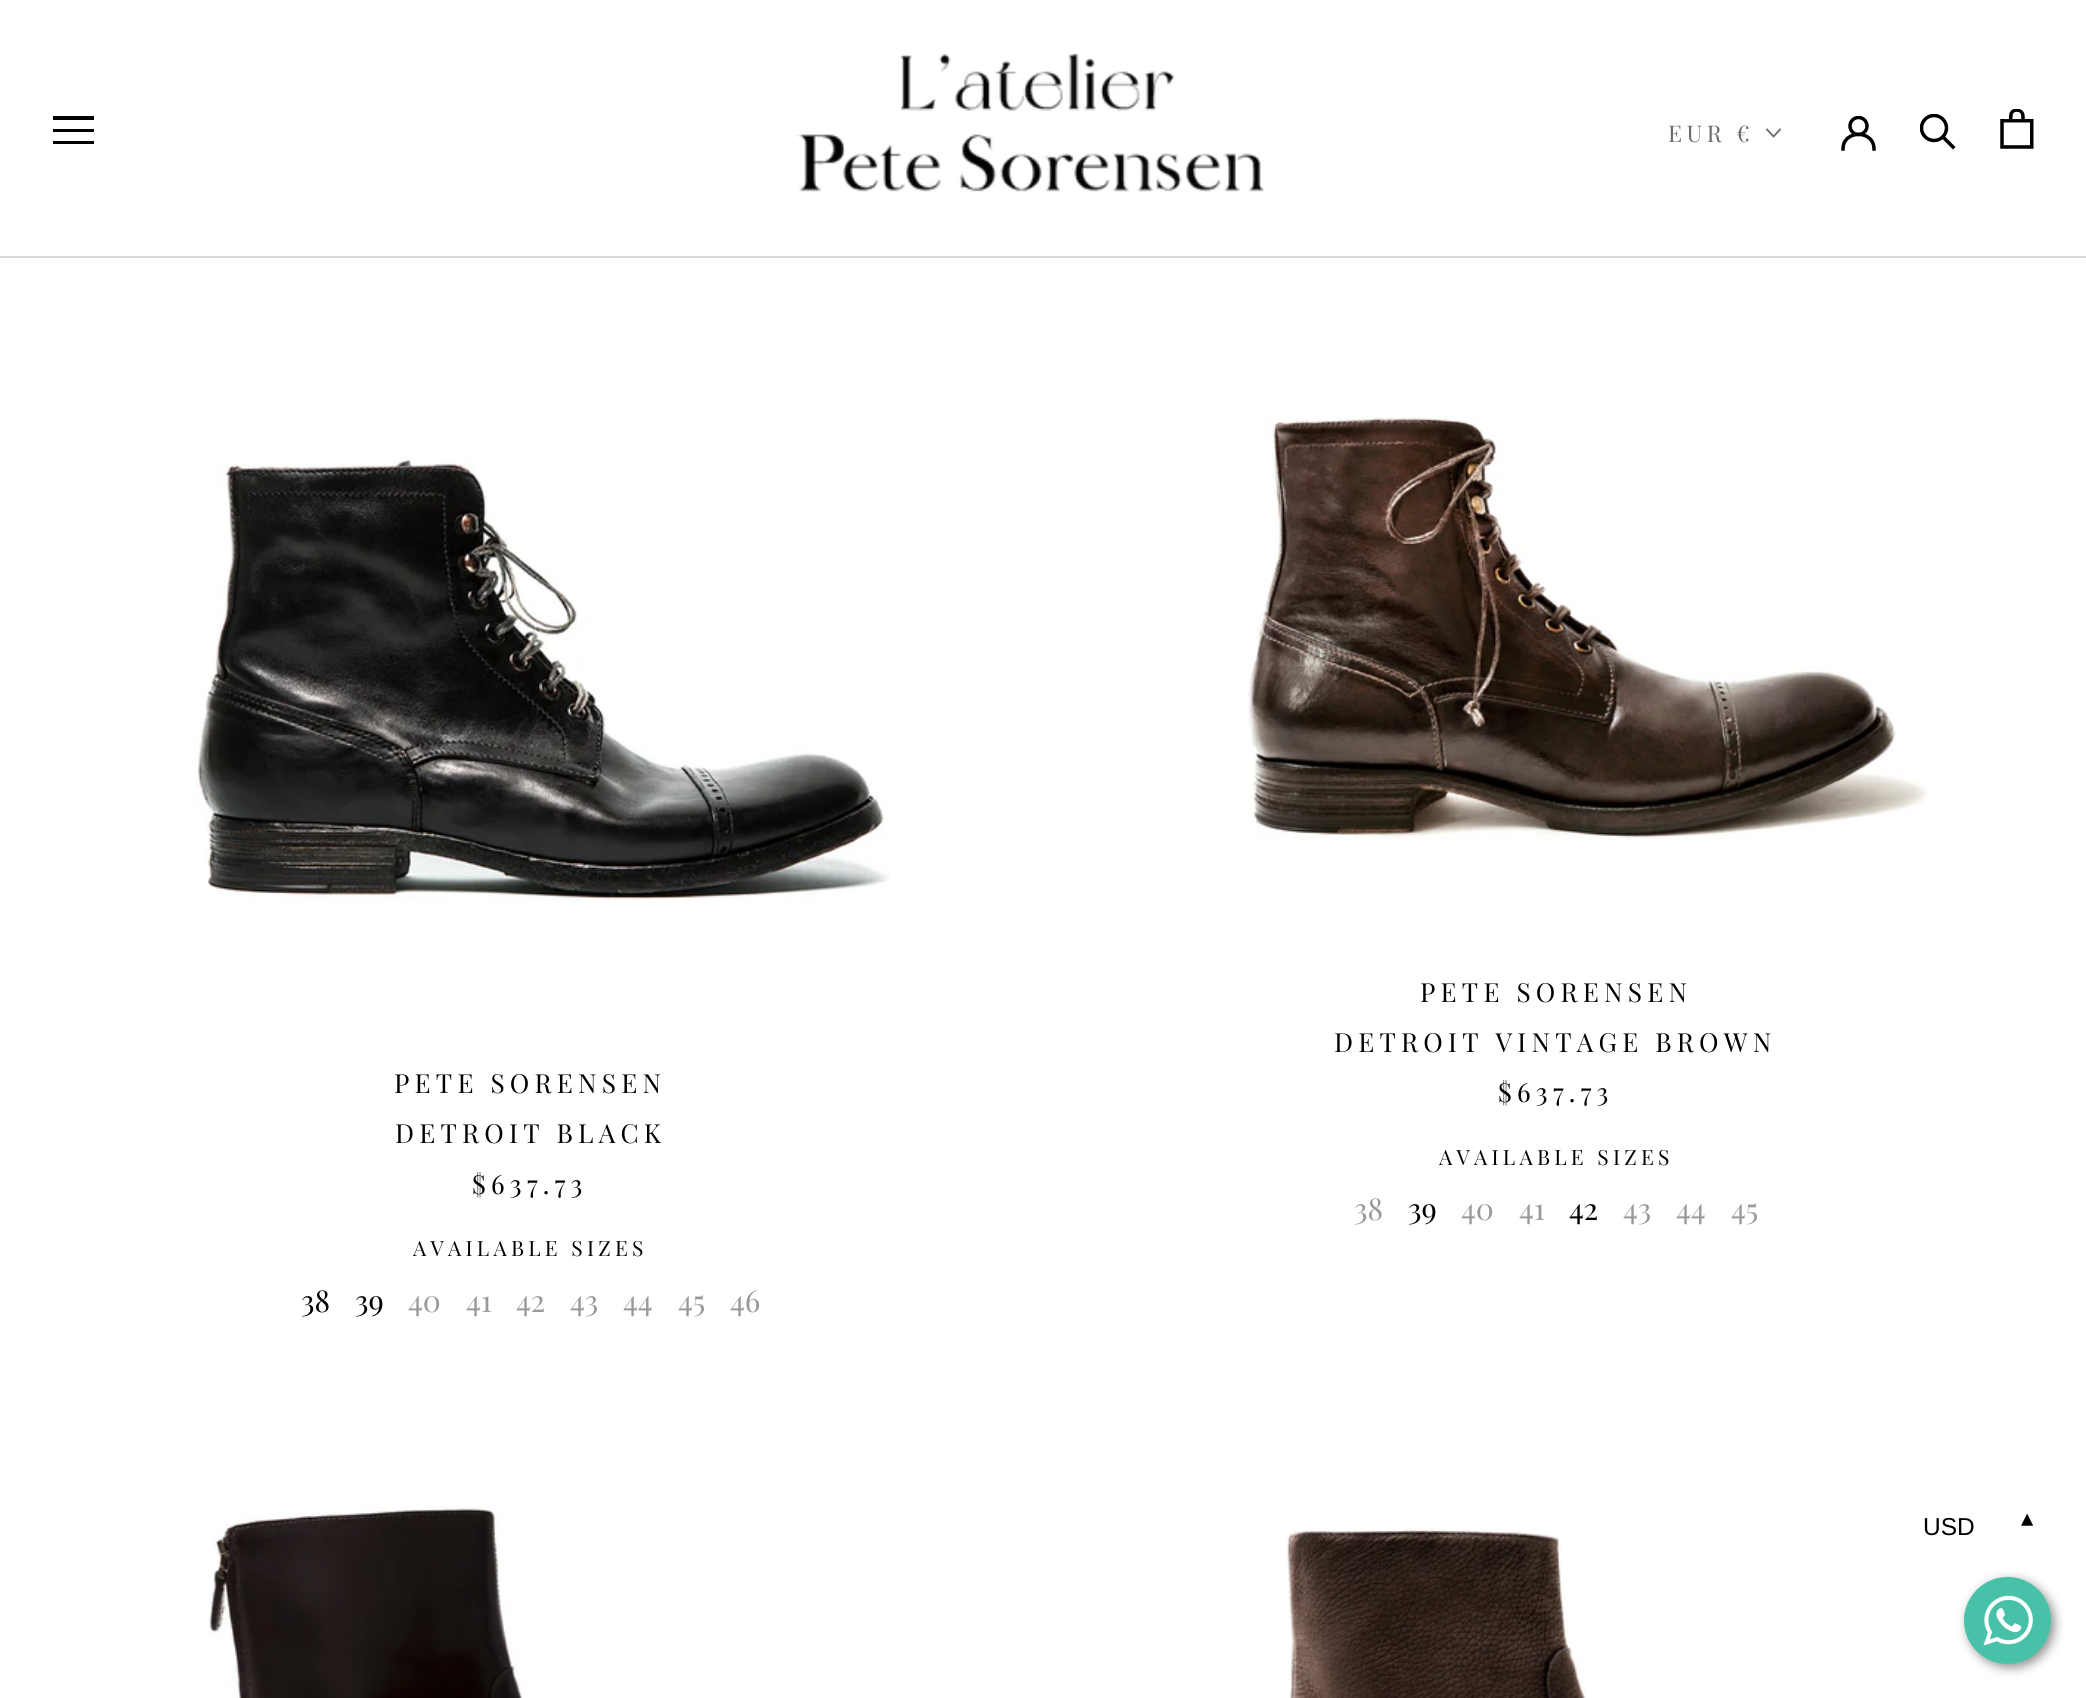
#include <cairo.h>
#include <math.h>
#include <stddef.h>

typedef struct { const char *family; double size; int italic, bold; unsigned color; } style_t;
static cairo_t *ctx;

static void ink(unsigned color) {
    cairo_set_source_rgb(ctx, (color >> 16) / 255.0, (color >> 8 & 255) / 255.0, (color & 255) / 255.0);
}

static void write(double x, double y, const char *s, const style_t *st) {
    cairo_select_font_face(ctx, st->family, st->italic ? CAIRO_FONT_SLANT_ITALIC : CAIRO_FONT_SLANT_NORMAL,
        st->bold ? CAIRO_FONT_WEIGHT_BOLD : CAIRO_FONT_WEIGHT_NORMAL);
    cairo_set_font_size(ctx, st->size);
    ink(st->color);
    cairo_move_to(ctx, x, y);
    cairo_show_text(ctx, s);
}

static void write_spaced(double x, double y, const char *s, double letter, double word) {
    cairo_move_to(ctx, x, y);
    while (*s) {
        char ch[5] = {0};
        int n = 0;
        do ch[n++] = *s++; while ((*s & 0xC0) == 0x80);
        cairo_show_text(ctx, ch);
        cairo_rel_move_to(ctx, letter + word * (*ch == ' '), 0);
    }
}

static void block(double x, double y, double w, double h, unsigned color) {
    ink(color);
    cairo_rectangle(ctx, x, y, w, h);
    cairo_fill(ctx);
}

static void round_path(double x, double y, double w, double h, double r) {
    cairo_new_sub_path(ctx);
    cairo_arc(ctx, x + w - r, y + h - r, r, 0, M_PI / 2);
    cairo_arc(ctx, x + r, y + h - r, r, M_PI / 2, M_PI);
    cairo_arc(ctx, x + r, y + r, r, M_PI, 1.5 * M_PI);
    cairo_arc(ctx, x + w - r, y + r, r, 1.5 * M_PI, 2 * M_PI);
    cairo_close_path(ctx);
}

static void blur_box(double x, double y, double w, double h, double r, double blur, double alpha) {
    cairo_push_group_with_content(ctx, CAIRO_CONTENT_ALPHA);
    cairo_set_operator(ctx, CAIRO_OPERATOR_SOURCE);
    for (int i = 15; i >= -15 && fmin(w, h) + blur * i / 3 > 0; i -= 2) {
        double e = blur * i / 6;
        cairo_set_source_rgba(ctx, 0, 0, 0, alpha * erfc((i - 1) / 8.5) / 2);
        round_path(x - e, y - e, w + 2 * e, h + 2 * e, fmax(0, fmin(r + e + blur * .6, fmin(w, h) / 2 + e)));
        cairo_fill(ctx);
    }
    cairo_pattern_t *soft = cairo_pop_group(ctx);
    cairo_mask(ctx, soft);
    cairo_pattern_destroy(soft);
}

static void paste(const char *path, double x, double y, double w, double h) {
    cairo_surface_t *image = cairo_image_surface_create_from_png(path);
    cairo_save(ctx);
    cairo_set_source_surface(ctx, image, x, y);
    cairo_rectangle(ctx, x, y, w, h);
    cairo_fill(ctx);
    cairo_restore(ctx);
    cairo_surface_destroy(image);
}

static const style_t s1 = {"Playfair Display", 30, 0, 0, 0x000000};
static const style_t s2 = {"Playfair Display", 30, 0, 0, 0x999999};
static const style_t s3 = {"Liberation Sans", 24.5, 0, 0, 0x000000};
static const style_t s4 = {"DejaVu Sans", 24.5, 0, 0, 0x000000};

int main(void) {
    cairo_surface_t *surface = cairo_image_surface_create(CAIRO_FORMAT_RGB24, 2086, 1698);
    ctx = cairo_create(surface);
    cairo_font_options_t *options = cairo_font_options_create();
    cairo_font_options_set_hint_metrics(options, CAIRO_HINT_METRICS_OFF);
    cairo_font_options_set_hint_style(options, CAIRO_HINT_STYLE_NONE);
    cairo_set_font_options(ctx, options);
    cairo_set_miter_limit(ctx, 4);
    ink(0xffffff);
    cairo_paint(ctx);
    block(0, 256, 2086, 2, 0xd9d9d9);
    cairo_save(ctx);
    cairo_rectangle(ctx, 53, 116, 42, 29);
    cairo_clip(ctx);
    ink(0x000000);
    cairo_new_path(ctx);
    cairo_move_to(ctx, 52, 144);
    cairo_line_to(ctx, 52, 141);
    cairo_line_to(ctx, 94, 141);
    cairo_line_to(ctx, 94, 144);
    cairo_close_path(ctx);
    cairo_move_to(ctx, 52, 129);
    cairo_line_to(ctx, 94, 129);
    cairo_line_to(ctx, 94, 132);
    cairo_line_to(ctx, 52, 132);
    cairo_close_path(ctx);
    cairo_move_to(ctx, 52, 116);
    cairo_line_to(ctx, 94, 116);
    cairo_line_to(ctx, 94, 120);
    cairo_line_to(ctx, 52, 120);
    cairo_close_path(ctx);
    cairo_fill(ctx);
    cairo_restore(ctx);
    paste("pic1.png", 796, 53, 468, 139);
    cairo_select_font_face(ctx, "Playfair Display", CAIRO_FONT_SLANT_NORMAL, CAIRO_FONT_WEIGHT_NORMAL);
    cairo_set_font_size(ctx, 23);
    ink(0x6a6a6a);
    write_spaced(1668, 142, "EUR €", 4.5, 0);
    cairo_new_path(ctx);
    cairo_move_to(ctx, 1780, 129.5);
    cairo_line_to(ctx, 1773.5, 136.5);
    cairo_line_to(ctx, 1767, 129.5);
    cairo_set_line_width(ctx, 1.8);
    cairo_set_line_cap(ctx, CAIRO_LINE_CAP_SQUARE);
    cairo_stroke(ctx);
    cairo_new_path(ctx);
    cairo_move_to(ctx, 1843, 149);
    cairo_curve_to(ctx, 1843, 129.5, 1874, 129.5, 1874, 149);
    ink(0x000000);
    cairo_set_line_width(ctx, 3.5);
    cairo_stroke(ctx);
    cairo_save(ctx);
    cairo_rectangle(ctx, 1841, 116, 35, 35);
    cairo_clip(ctx);
    cairo_arc(ctx, 1858.5, 126, 8.5, 0, 2 * M_PI);
    cairo_set_line_cap(ctx, CAIRO_LINE_CAP_BUTT);
    cairo_stroke(ctx);
    cairo_restore(ctx);
    cairo_new_path(ctx);
    cairo_move_to(ctx, 1953, 147);
    cairo_line_to(ctx, 1943, 137);
    cairo_stroke(ctx);
    cairo_save(ctx);
    cairo_rectangle(ctx, 1920, 114, 37, 37);
    cairo_clip(ctx);
    cairo_arc(ctx, 1934, 128, 12.5, 0, 2 * M_PI);
    cairo_set_line_cap(ctx, CAIRO_LINE_CAP_BUTT);
    cairo_stroke(ctx);
    cairo_restore(ctx);
    paste("pic2.png", 2000, 109, 34, 40);
    paste("pic3.png", 194, 457, 696, 444);
    cairo_set_font_size(ctx, 26.25);
    write_spaced(394, 1093, "PETE SORENSEN", 5.25, 0);
    write_spaced(395, 1143, "DETROIT BLACK", 5.25, 0);
    write_spaced(472, 1194, "$637.73", 5.25, 0);
    cairo_set_font_size(ctx, 21);
    write_spaced(413, 1256, "AVAILABLE SIZES", 4.25, 0);
    write(301, 1312, "38", &s1);
    write(355, 1312, "39", &s1);
    write(408, 1312, "40", &s2);
    write(466, 1312, "41", &s2);
    write(516, 1312, "42", &s2);
    write(570, 1312, "43", &s2);
    write(623, 1312, "44", &s2);
    write(678, 1312, "45", &s2);
    write(730, 1312, "46", &s2);
    paste("pic4.png", 1248, 416, 680, 424);
    cairo_set_font_size(ctx, 26.25);
    ink(0x000000);
    write_spaced(1420, 1002, "PETE SORENSEN", 5.25, 0);
    write_spaced(1334, 1052, "DETROIT VINTAGE BROWN", 5.25, 0);
    write_spaced(1498, 1102, "$637.73", 5.25, 0);
    cairo_set_font_size(ctx, 21);
    write_spaced(1439, 1165, "AVAILABLE SIZES", 4.25, 0);
    write(1354, 1220, "38", &s2);
    write(1408, 1220, "39", &s1);
    write(1461, 1220, "40", &s2);
    write(1519, 1220, "41", &s2);
    write(1569, 1220, "42", &s1);
    write(1623, 1220, "43", &s2);
    write(1676, 1220, "44", &s2);
    write(1731, 1220, "45", &s2);
    paste("pic5.png", 206, 1505, 318, 193);
    paste("pic6.png", 1286, 1524, 300, 174);
    write(1923, 1535, "USD", &s3);
    write(2021, 1526, "▴", &s4);
    ink(0x000000);
    blur_box(1967, 1580, 88, 88, 44, 5, 0.4);
    ink(0x47c2a9);
    cairo_arc(ctx, 2007.5, 1620.5, 43.5, 0, 2 * M_PI);
    cairo_fill(ctx);
    paste("pic7.png", 1983, 1595, 50, 51);
    cairo_surface_write_to_png(surface, "screenshot.png");
    cairo_font_options_destroy(options);
    cairo_destroy(ctx);
    cairo_surface_destroy(surface);
    return 0;
}
